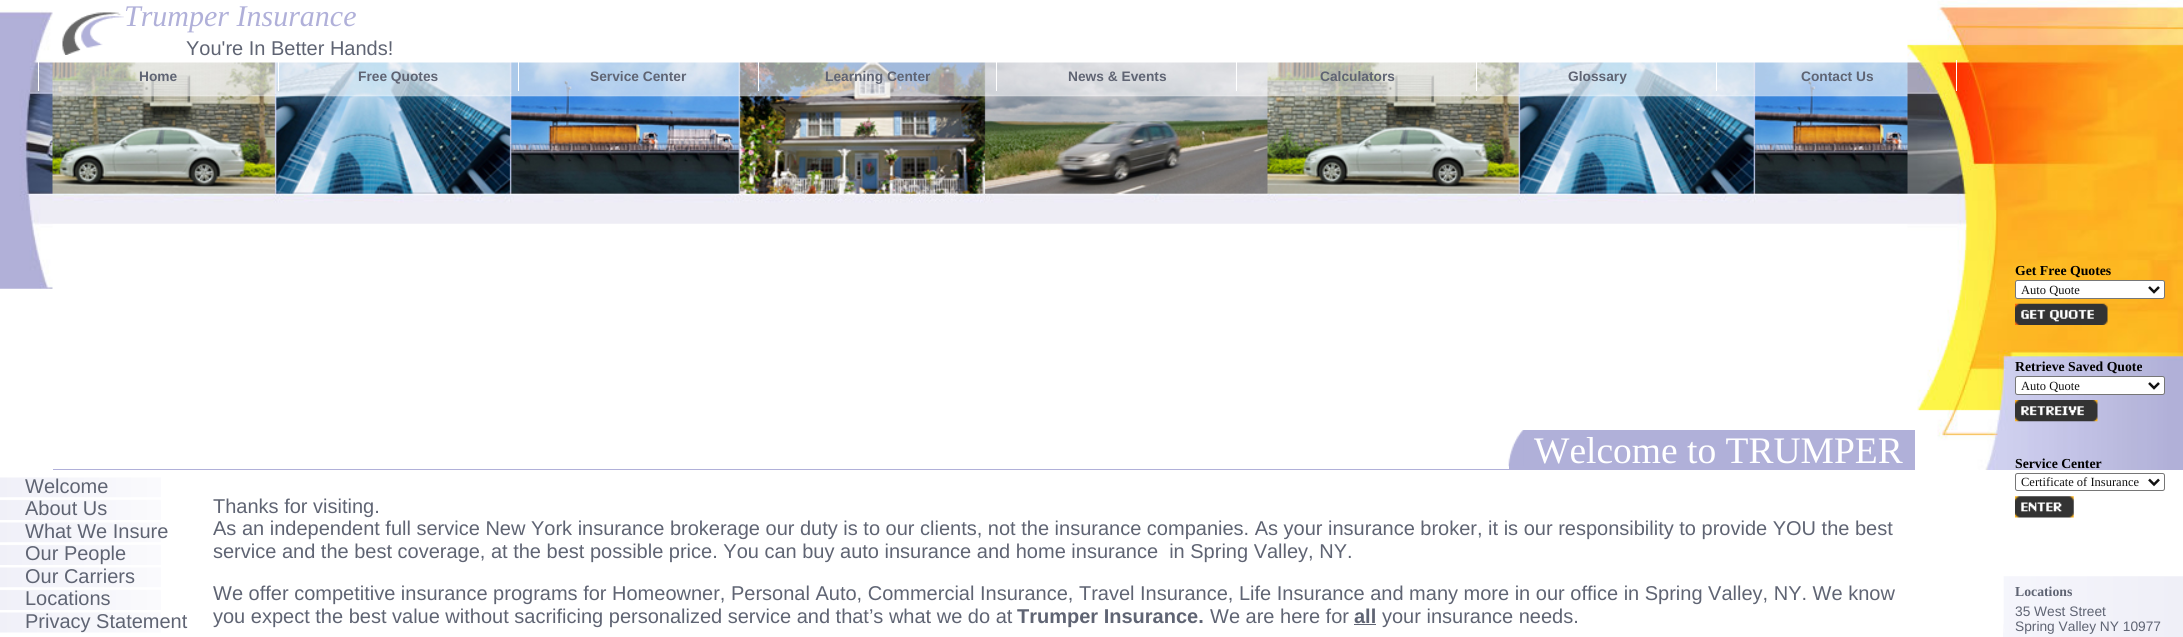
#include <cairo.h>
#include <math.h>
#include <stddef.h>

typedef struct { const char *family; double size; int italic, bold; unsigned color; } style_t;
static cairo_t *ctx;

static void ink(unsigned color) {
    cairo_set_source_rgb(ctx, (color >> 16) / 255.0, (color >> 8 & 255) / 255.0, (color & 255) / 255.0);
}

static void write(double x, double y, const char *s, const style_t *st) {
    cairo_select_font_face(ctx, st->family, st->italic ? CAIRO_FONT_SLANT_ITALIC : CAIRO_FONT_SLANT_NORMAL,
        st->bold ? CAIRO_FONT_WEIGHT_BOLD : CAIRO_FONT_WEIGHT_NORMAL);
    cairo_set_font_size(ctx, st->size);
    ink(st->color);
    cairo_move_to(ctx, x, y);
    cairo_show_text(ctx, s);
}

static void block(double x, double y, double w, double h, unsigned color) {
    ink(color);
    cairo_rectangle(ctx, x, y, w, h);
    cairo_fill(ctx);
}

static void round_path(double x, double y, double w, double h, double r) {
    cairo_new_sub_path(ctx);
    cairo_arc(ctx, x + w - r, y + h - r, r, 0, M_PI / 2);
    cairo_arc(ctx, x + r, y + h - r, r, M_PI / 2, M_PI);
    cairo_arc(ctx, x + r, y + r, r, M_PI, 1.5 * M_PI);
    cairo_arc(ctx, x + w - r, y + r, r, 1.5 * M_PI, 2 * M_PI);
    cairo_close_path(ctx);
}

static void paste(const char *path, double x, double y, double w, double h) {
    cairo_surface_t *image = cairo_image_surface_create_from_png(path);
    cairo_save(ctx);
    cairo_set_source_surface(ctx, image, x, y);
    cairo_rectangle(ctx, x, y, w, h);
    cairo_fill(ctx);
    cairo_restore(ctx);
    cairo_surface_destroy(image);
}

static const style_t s1 = {"Liberation Serif", 30, 1, 0, 0xb0b0d9};
static const style_t s2 = {"Liberation Sans", 20, 0, 0, 0x5f6473};
static const style_t s3 = {"Liberation Sans", 13.75, 0, 1, 0x5f6473};
static const style_t s4 = {"Liberation Serif", 37.5, 0, 0, 0xffffff};
static const style_t s5 = {"Liberation Sans", 20, 0, 1, 0x5f6473};
static const style_t s6 = {"Liberation Serif", 13.75, 0, 1, 0x000000};
static const style_t s7 = {"Liberation Serif", 12.5, 0, 0, 0x111111};
static const style_t s8 = {"Liberation Serif", 13.75, 0, 1, 0x5f6473};
static const style_t s9 = {"Liberation Sans", 13.75, 0, 0, 0x5f6473};

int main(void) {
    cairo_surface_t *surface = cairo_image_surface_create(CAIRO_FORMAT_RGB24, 2183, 637);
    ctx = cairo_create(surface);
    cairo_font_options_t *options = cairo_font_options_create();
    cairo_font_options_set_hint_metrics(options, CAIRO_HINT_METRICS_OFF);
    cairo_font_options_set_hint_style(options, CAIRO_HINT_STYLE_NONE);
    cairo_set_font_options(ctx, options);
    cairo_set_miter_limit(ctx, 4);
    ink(0xffffff);
    cairo_paint(ctx);
    paste("pic1.png", 52, 62, 1856, 162);
    paste("pic2.png", 1907, 0, 276, 470);
    paste("pic3.png", 0, 10, 53, 279);
    paste("pic4.png", 62, 12, 62, 43);
    write(124, 26, "Trumper Insurance", &s1);
    write(186, 55, "You're In Better Hands!", &s2);
    block(38, 60, 1, 31, 0xffffff);
    block(278, 60, 1, 31, 0xffffff);
    write(139, 81, "Home", &s3);
    block(518, 60, 1, 31, 0xffffff);
    write(358, 81, "Free Quotes", &s3);
    block(758, 60, 1, 31, 0xffffff);
    write(590, 81, "Service Center", &s3);
    block(996, 60, 1, 31, 0xffffff);
    write(825, 81, "Learning Center", &s3);
    block(1236, 60, 1, 31, 0xffffff);
    write(1068, 81, "News & Events", &s3);
    block(1476, 60, 1, 31, 0xffffff);
    write(1320, 81, "Calculators", &s3);
    block(1716, 60, 1, 31, 0xffffff);
    write(1568, 81, "Glossary", &s3);
    block(1956, 60, 1, 31, 0xffffff);
    write(1801, 81, "Contact Us", &s3);
    paste("pic5.png", 0, 477, 161, 21);
    write(25, 493, "Welcome", &s2);
    paste("pic6.png", 0, 497, 161, 23);
    write(25, 515, "About Us", &s2);
    paste("pic5.png", 0, 522, 161, 21);
    write(25, 538, "What We Insure", &s2);
    paste("pic6.png", 0, 542, 161, 23);
    write(25, 560, "Our People", &s2);
    paste("pic5.png", 0, 567, 161, 21);
    write(25, 583, "Our Carriers", &s2);
    paste("pic6.png", 0, 587, 161, 23);
    write(25, 605, "Locations", &s2);
    paste("pic5.png", 0, 612, 161, 21);
    write(25, 628, "Privacy Statement", &s2);
    block(53, 469, 1862, 1, 0xb0b0d9);
    block(1509, 430, 406, 39, 0xb0b0d9);
    paste("pic7.png", 1508, 430, 16, 37);
    write(1534, 463, "Welcome to TRUMPER", &s4);
    write(213, 513, "Thanks for visiting.", &s2);
    write(213, 535, "As an independent full service New York insurance brokerage our duty is to our clients, not the insurance companies. As your insurance broker, it is our responsibility to provide YOU the best", &s2);
    write(213, 558, "service and the best coverage, at the best possible price. You can buy auto insurance and home insurance  in Spring Valley, NY.", &s2);
    write(213, 600, "We offer competitive insurance programs for Homeowner, Personal Auto, Commercial Insurance, Travel Insurance, Life Insurance and many more in our office in Spring Valley, NY. We know", &s2);
    write(213, 623, "you expect the best value without sacrificing personalized service and that’s what we do at", &s2);
    write(1017, 623, "Trumper Insurance.", &s5);
    write(1210, 623, "We are here for", &s2);
    write(1354, 623, "all", &s5);
    block(1354, 624, 22, 1, 0x5f6473);
    write(1382, 623, "your insurance needs.", &s2);
    write(2015, 275, "Get Free Quotes", &s6);
    ink(0xffffff);
    round_path(2015.5, 280.5, 149, 18, 2);
    cairo_fill_preserve(ctx);
    ink(0x767676);
    cairo_set_line_width(ctx, 1);
    cairo_stroke(ctx);
    cairo_new_path(ctx);
    cairo_move_to(ctx, 2149, 287);
    cairo_line_to(ctx, 2154, 292);
    cairo_line_to(ctx, 2159, 287);
    ink(0x111111);
    cairo_set_line_width(ctx, 2.5);
    cairo_stroke(ctx);
    write(2021, 294, "Auto Quote", &s7);
    paste("pic8.png", 2015, 303, 93, 22);
    write(2015, 371, "Retrieve Saved Quote", &s6);
    ink(0xffffff);
    round_path(2015.5, 376.5, 149, 18, 2);
    cairo_fill_preserve(ctx);
    ink(0x767676);
    cairo_set_line_width(ctx, 1);
    cairo_stroke(ctx);
    cairo_new_path(ctx);
    cairo_move_to(ctx, 2149, 383);
    cairo_line_to(ctx, 2154, 388);
    cairo_line_to(ctx, 2159, 383);
    ink(0x111111);
    cairo_set_line_width(ctx, 2.5);
    cairo_stroke(ctx);
    write(2021, 390, "Auto Quote", &s7);
    paste("pic9.png", 2015, 400, 83, 22);
    write(2015, 468, "Service Center", &s6);
    round_path(2015.5, 473.5, 149, 17, 2);
    ink(0x767676);
    cairo_set_line_width(ctx, 1);
    cairo_stroke(ctx);
    cairo_new_path(ctx);
    cairo_move_to(ctx, 2149, 479.5);
    cairo_line_to(ctx, 2154, 484.5);
    cairo_line_to(ctx, 2159, 479.5);
    ink(0x111111);
    cairo_set_line_width(ctx, 2.5);
    cairo_stroke(ctx);
    write(2021, 486, "Certificate of Insurance", &s7);
    paste("pic10.png", 2015, 496, 59, 22);
    paste("pic11.png", 2003, 576, 180, 61);
    write(2015, 596, "Locations", &s8);
    write(2015, 616, "35 West Street", &s9);
    write(2015, 631, "Spring Valley NY 10977", &s9);
    cairo_surface_write_to_png(surface, "screenshot.png");
    cairo_font_options_destroy(options);
    cairo_destroy(ctx);
    cairo_surface_destroy(surface);
    return 0;
}
